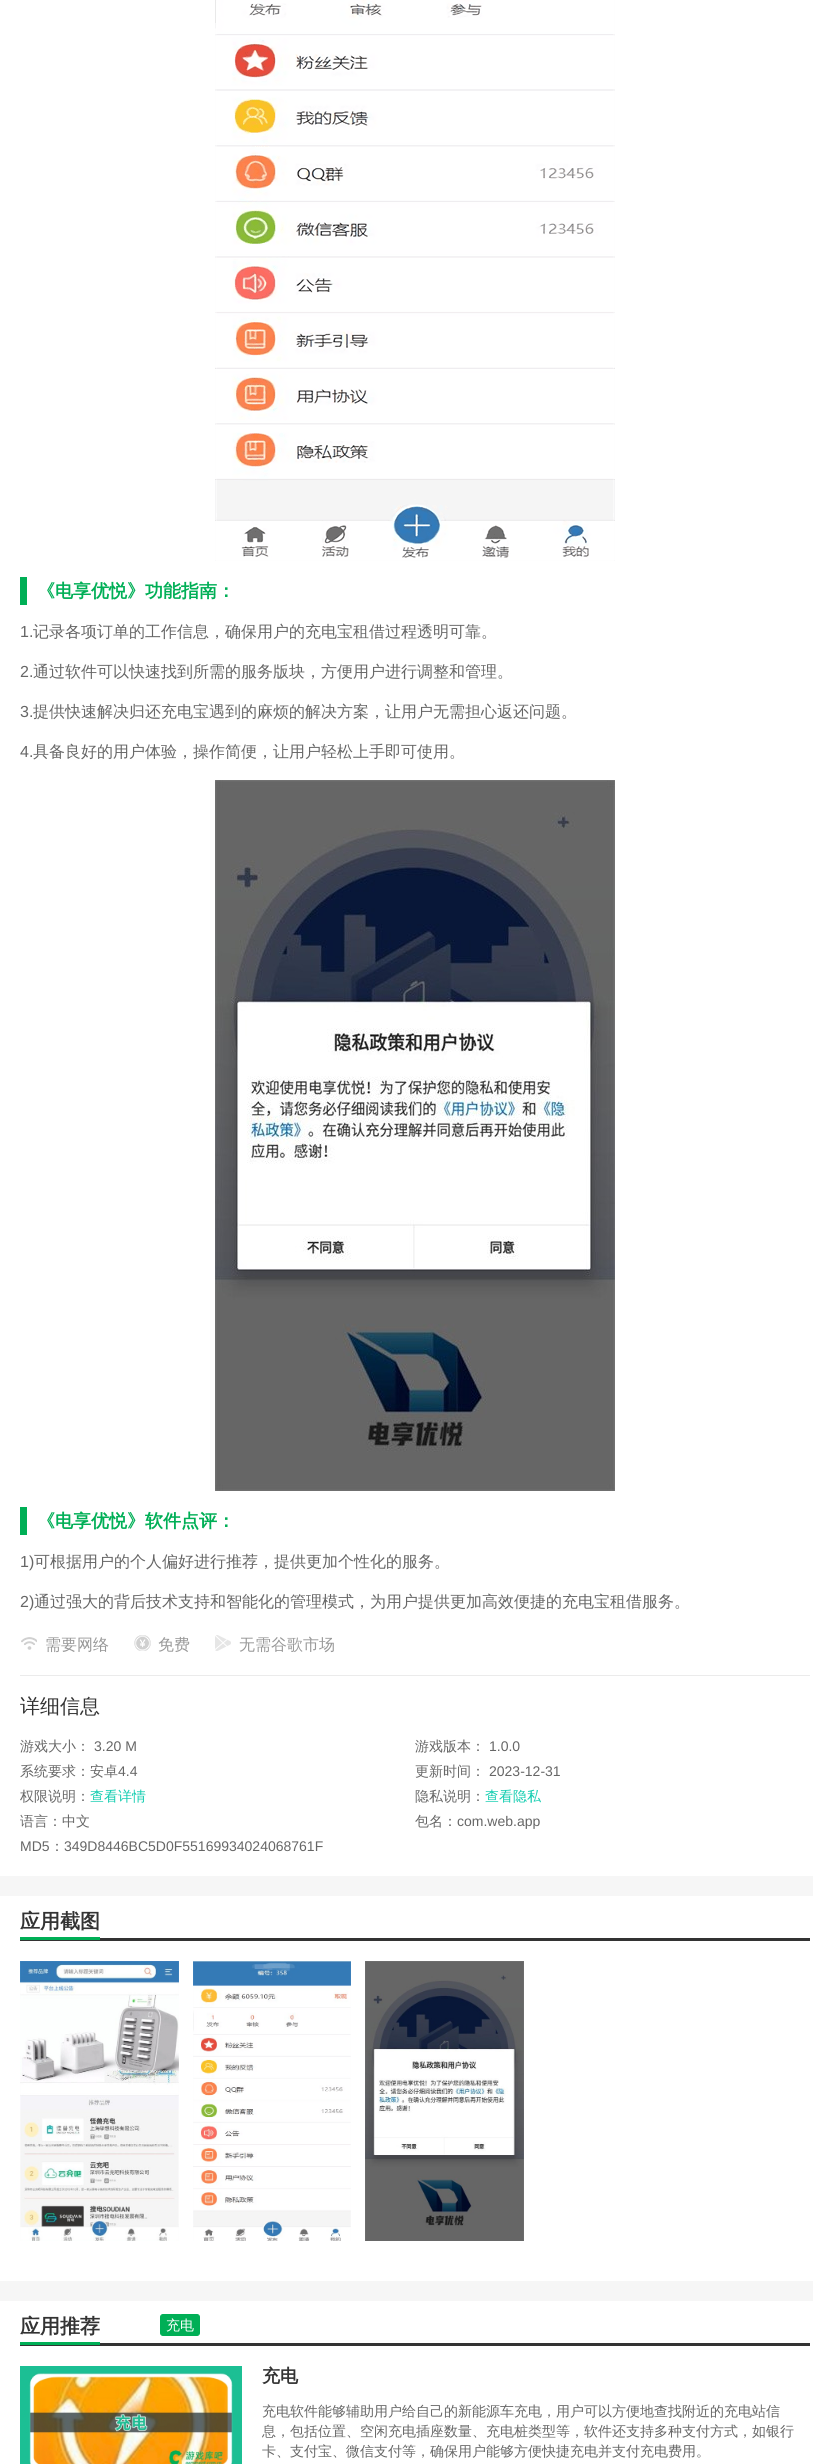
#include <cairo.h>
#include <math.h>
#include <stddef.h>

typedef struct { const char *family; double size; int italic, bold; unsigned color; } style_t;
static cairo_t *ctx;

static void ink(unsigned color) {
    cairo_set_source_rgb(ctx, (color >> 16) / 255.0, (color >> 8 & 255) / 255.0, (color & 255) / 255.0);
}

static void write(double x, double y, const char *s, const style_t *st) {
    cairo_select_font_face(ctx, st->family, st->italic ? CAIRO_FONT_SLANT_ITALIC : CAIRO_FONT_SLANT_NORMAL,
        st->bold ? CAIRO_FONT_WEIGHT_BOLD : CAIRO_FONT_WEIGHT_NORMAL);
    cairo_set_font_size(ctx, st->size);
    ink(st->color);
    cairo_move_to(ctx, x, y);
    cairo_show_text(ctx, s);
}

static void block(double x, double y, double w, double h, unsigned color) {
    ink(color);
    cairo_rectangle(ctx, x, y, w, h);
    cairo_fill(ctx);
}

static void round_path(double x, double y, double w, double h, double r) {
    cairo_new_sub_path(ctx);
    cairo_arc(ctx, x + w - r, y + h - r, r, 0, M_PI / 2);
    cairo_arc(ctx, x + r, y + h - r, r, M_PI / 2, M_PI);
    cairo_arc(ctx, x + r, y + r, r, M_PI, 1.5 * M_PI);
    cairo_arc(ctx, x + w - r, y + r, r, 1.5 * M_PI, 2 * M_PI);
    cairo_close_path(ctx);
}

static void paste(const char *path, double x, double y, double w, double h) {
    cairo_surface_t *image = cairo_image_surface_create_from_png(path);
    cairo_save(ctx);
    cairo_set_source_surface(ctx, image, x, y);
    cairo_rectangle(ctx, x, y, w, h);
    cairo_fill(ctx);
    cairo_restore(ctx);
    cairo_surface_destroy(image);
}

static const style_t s1 = {"WenQuanYi Zen Hei", 18, 0, 1, 0x00af56};
static const style_t s2 = {"Liberation Sans", 16, 0, 0, 0x666666};
static const style_t s3 = {"WenQuanYi Zen Hei Medium", 16, 0, 0, 0x666666};
static const style_t s4 = {"WenQuanYi Zen Hei Medium", 16, 0, 0, 0x999999};
static const style_t s5 = {"WenQuanYi Zen Hei Medium", 20, 0, 0, 0x333333};
static const style_t s6 = {"WenQuanYi Zen Hei Medium", 14, 0, 0, 0x666666};
static const style_t s7 = {"Liberation Sans", 14, 0, 0, 0x666666};
static const style_t s8 = {"WenQuanYi Zen Hei Medium", 14, 0, 0, 0x12cdb0};
static const style_t s9 = {"WenQuanYi Zen Hei", 20, 0, 1, 0x333333};
static const style_t s10 = {"WenQuanYi Zen Hei Medium", 14, 0, 0, 0xffffff};
static const style_t s11 = {"WenQuanYi Zen Hei", 18, 0, 1, 0x333333};

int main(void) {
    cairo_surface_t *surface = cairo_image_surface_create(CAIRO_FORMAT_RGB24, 813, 2464);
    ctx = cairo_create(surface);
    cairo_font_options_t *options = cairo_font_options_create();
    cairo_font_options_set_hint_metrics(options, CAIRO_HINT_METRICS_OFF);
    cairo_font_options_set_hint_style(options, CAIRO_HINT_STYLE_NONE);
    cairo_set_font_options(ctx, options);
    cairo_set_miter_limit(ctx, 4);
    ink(0xf6f6f6);
    cairo_paint(ctx);
    block(0, 0, 813, 1876, 0xffffff);
    paste("pic1.png", 215, 0, 400, 561);
    block(20, 577, 7, 28, 0x00af56);
    write(37, 597, "《电享优悦》功能指南：", &s1);
    write(20, 637, "1.", &s2);
    write(33, 637, "记录各项订单的工作信息，确保用户的充电宝租借过程透明可靠。", &s3);
    write(20, 677, "2.", &s2);
    write(33, 677, "通过软件可以快速找到所需的服务版块，方便用户进行调整和管理。", &s3);
    write(20, 717, "3.", &s2);
    write(33, 717, "提供快速解决归还充电宝遇到的麻烦的解决方案，让用户无需担心返还问题。", &s3);
    write(20, 757, "4.", &s2);
    write(33, 757, "具备良好的用户体验，操作简便，让用户轻松上手即可使用。", &s3);
    paste("pic2.png", 215, 780, 400, 711);
    block(20, 1507, 7, 28, 0x00af56);
    write(37, 1527, "《电享优悦》软件点评：", &s1);
    write(20, 1567, "1)", &s2);
    write(34, 1567, "可根据用户的个人偏好进行推荐，提供更加个性化的服务。", &s3);
    write(20, 1607, "2)", &s2);
    write(34, 1607, "通过强大的背后技术支持和智能化的管理模式，为用户提供更加高效便捷的充电宝租借服务。", &s3);
    paste("pic3.png", 21, 1637, 16, 13);
    write(45, 1650, "需要网络", &s4);
    paste("pic4.png", 134, 1635, 17, 16);
    write(158, 1650, "免费", &s4);
    paste("pic5.png", 215, 1635, 16, 16);
    write(239, 1650, "无需谷歌市场", &s4);
    block(20, 1675, 790, 1, 0xebebeb);
    write(20, 1713, "详细信息", &s5);
    write(20, 1751, "游戏大小：", &s6);
    write(94, 1751, "3.20 M", &s7);
    write(415, 1751, "游戏版本：", &s6);
    write(489, 1751, "1.0.0", &s7);
    write(20, 1776, "系统要求：安卓", &s6);
    write(118, 1776, "4.4", &s7);
    write(415, 1776, "更新时间：", &s6);
    write(489, 1776, "2023-12-31", &s7);
    write(20, 1801, "权限说明：", &s6);
    write(90, 1801, "查看详情", &s8);
    write(415, 1801, "隐私说明：", &s6);
    write(485, 1801, "查看隐私", &s8);
    write(20, 1826, "语言：中文", &s6);
    write(415, 1826, "包名：", &s6);
    write(457, 1826, "com.web.app", &s7);
    write(20, 1851, "MD5", &s7);
    write(50, 1851, "：", &s6);
    write(64, 1851, "349D8446BC5D0F55169934024068761F", &s7);
    block(0, 1896, 813, 385, 0xffffff);
    block(20, 1938, 790, 3, 0x333333);
    write(20, 1928, "应用截图", &s9);
    block(20, 1937, 80, 3, 0x00af56);
    paste("pic6.png", 20, 1961, 159, 280);
    paste("pic7.png", 193, 1961, 158, 280);
    paste("pic8.png", 365, 1961, 159, 280);
    block(0, 2301, 813, 163, 0xffffff);
    block(20, 2343, 790, 3, 0x333333);
    write(20, 2333, "应用推荐", &s9);
    block(20, 2342, 80, 3, 0x00af56);
    round_path(160.5, 2314.5, 39, 21, 2.5);
    cairo_fill_preserve(ctx);
    cairo_set_line_width(ctx, 1);
    cairo_stroke(ctx);
    write(166, 2330, "充电", &s10);
    paste("pic9.png", 20, 2366, 222, 98);
    write(262, 2382, "充电", &s11);
    write(262, 2416, "充电软件能够辅助用户给自己的新能源车充电，用户可以方便地查找附近的充电站信", &s6);
    write(262, 2436, "息，包括位置、空闲充电插座数量、充电桩类型等，软件还支持多种支付方式，如银行", &s6);
    write(262, 2456, "卡、支付宝、微信支付等，确保用户能够方便快捷充电并支付充电费用。", &s6);
    cairo_surface_write_to_png(surface, "screenshot.png");
    cairo_font_options_destroy(options);
    cairo_destroy(ctx);
    cairo_surface_destroy(surface);
    return 0;
}
